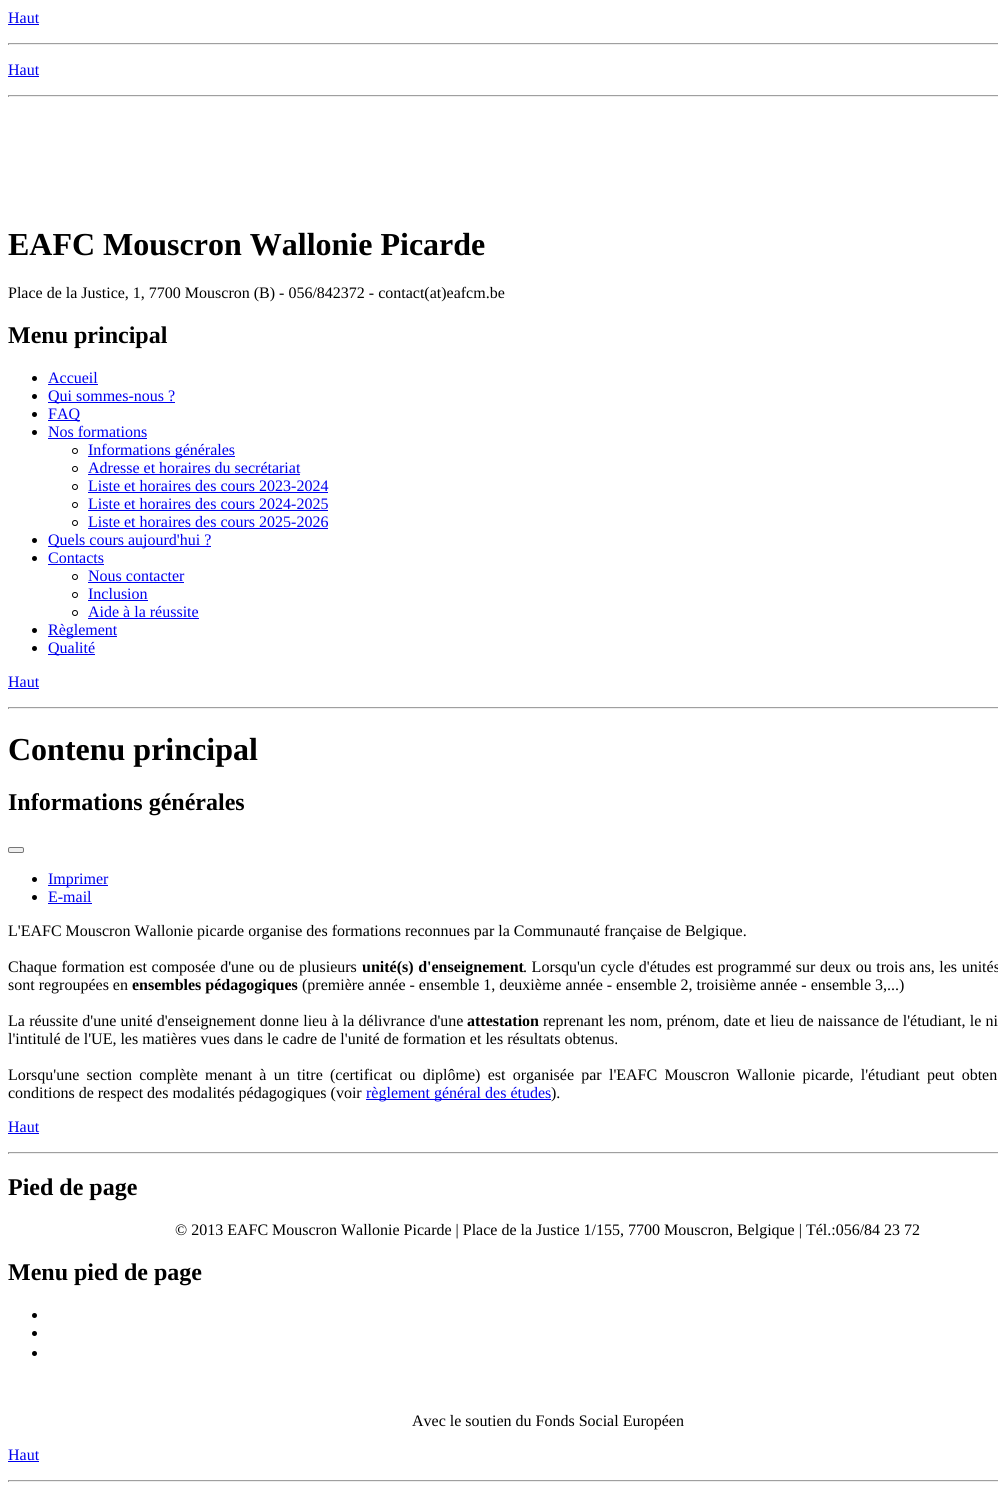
#include <cairo.h>
#include <math.h>
#include <stddef.h>

typedef struct { const char *family; double size; int italic, bold; unsigned color; } style_t;
static cairo_t *ctx;

static void ink(unsigned color) {
    cairo_set_source_rgb(ctx, (color >> 16) / 255.0, (color >> 8 & 255) / 255.0, (color & 255) / 255.0);
}

static void write(double x, double y, const char *s, const style_t *st) {
    cairo_select_font_face(ctx, st->family, st->italic ? CAIRO_FONT_SLANT_ITALIC : CAIRO_FONT_SLANT_NORMAL,
        st->bold ? CAIRO_FONT_WEIGHT_BOLD : CAIRO_FONT_WEIGHT_NORMAL);
    cairo_set_font_size(ctx, st->size);
    ink(st->color);
    cairo_move_to(ctx, x, y);
    cairo_show_text(ctx, s);
}

static void write_spaced(double x, double y, const char *s, double letter, double word) {
    cairo_move_to(ctx, x, y);
    while (*s) {
        char ch[5] = {0};
        int n = 0;
        do ch[n++] = *s++; while ((*s & 0xC0) == 0x80);
        cairo_show_text(ctx, ch);
        cairo_rel_move_to(ctx, letter + word * (*ch == ' '), 0);
    }
}

static void block(double x, double y, double w, double h, unsigned color) {
    ink(color);
    cairo_rectangle(ctx, x, y, w, h);
    cairo_fill(ctx);
}

static void round_path(double x, double y, double w, double h, double r) {
    cairo_new_sub_path(ctx);
    cairo_arc(ctx, x + w - r, y + h - r, r, 0, M_PI / 2);
    cairo_arc(ctx, x + r, y + h - r, r, M_PI / 2, M_PI);
    cairo_arc(ctx, x + r, y + r, r, M_PI, 1.5 * M_PI);
    cairo_arc(ctx, x + w - r, y + r, r, 1.5 * M_PI, 2 * M_PI);
    cairo_close_path(ctx);
}

static const style_t s1 = {"Liberation Serif", 16, 0, 0, 0x0000ee};
static const style_t s2 = {"Liberation Serif", 32, 0, 1, 0x000000};
static const style_t s3 = {"Liberation Serif", 16, 0, 0, 0x000000};
static const style_t s4 = {"Liberation Serif", 24, 0, 1, 0x000000};
static const style_t s5 = {"Liberation Serif", 16, 0, 1, 0x000000};

int main(void) {
    cairo_surface_t *surface = cairo_image_surface_create(CAIRO_FORMAT_RGB24, 998, 1499);
    ctx = cairo_create(surface);
    cairo_font_options_t *options = cairo_font_options_create();
    cairo_font_options_set_hint_metrics(options, CAIRO_HINT_METRICS_OFF);
    cairo_font_options_set_hint_style(options, CAIRO_HINT_STYLE_NONE);
    cairo_set_font_options(ctx, options);
    cairo_set_miter_limit(ctx, 4);
    ink(0xffffff);
    cairo_paint(ctx);
    write(8, 23, "Haut", &s1);
    block(8, 24, 31, 1, 0x0000ee);
    block(8, 43, 990, 1, 0x9f9f9f);
    block(8, 44, 990, 1, 0xeeeeee);
    block(8, 43, 1, 2, 0x9f9f9f);
    write(8, 75, "Haut", &s1);
    block(8, 76, 31, 1, 0x0000ee);
    block(8, 95, 990, 1, 0x9f9f9f);
    block(8, 96, 990, 1, 0xeeeeee);
    block(8, 95, 1, 2, 0x9f9f9f);
    write(8, 255, "EAFC Mouscron Wallonie Picarde", &s2);
    write(8, 298, "Place de la Justice, 1, 7700 Mouscron (B) - 056/842372 - contact(at)eafcm.be", &s3);
    write(8, 343, "Menu principal", &s4);
    cairo_new_path(ctx);
    cairo_arc(ctx, 34.5, 378.5, 2.5, 0, 2 * M_PI);
    cairo_fill(ctx);
    write(48, 383, "Accueil", &s1);
    block(48, 384, 50, 1, 0x0000ee);
    ink(0x000000);
    cairo_new_path(ctx);
    cairo_arc(ctx, 34.5, 396.5, 2.5, 0, 2 * M_PI);
    cairo_fill(ctx);
    block(48, 402, 127, 1, 0x0000ee);
    write(48, 401, "Qui sommes-nous ?", &s1);
    ink(0x000000);
    cairo_new_path(ctx);
    cairo_arc(ctx, 34.5, 414.5, 2.5, 0, 2 * M_PI);
    cairo_fill(ctx);
    block(48, 420, 32, 1, 0x0000ee);
    write(48, 419, "FAQ", &s1);
    ink(0x000000);
    cairo_new_path(ctx);
    cairo_arc(ctx, 34.5, 432.5, 2.5, 0, 2 * M_PI);
    cairo_fill(ctx);
    write(48, 437, "Nos formations", &s1);
    block(48, 438, 99, 1, 0x0000ee);
    cairo_new_path(ctx);
    cairo_arc(ctx, 75, 451, 2.5, 0, 2 * M_PI);
    ink(0x000000);
    cairo_set_line_width(ctx, 1);
    cairo_stroke(ctx);
    block(88, 456, 147, 1, 0x0000ee);
    write(88, 455, "Informations générales", &s1);
    cairo_new_path(ctx);
    cairo_arc(ctx, 75, 469, 2.5, 0, 2 * M_PI);
    ink(0x000000);
    cairo_stroke(ctx);
    write(88, 473, "Adresse et horaires du secrétariat", &s1);
    block(88, 474, 212, 1, 0x0000ee);
    cairo_new_path(ctx);
    cairo_arc(ctx, 75, 487, 2.5, 0, 2 * M_PI);
    ink(0x000000);
    cairo_stroke(ctx);
    write(88, 491, "Liste et horaires des cours 2023-2024", &s1);
    block(88, 492, 240, 1, 0x0000ee);
    cairo_new_path(ctx);
    cairo_arc(ctx, 75, 505, 2.5, 0, 2 * M_PI);
    ink(0x000000);
    cairo_stroke(ctx);
    write(88, 509, "Liste et horaires des cours 2024-2025", &s1);
    block(88, 510, 240, 1, 0x0000ee);
    cairo_new_path(ctx);
    cairo_arc(ctx, 75, 523, 2.5, 0, 2 * M_PI);
    ink(0x000000);
    cairo_stroke(ctx);
    write(88, 527, "Liste et horaires des cours 2025-2026", &s1);
    block(88, 528, 240, 1, 0x0000ee);
    ink(0x000000);
    cairo_new_path(ctx);
    cairo_arc(ctx, 34.5, 540.5, 2.5, 0, 2 * M_PI);
    cairo_fill(ctx);
    block(48, 546, 163, 1, 0x0000ee);
    write(48, 545, "Quels cours aujourd'hui ?", &s1);
    ink(0x000000);
    cairo_new_path(ctx);
    cairo_arc(ctx, 34.5, 558.5, 2.5, 0, 2 * M_PI);
    cairo_fill(ctx);
    write(48, 563, "Contacts", &s1);
    block(48, 564, 56, 1, 0x0000ee);
    cairo_new_path(ctx);
    cairo_arc(ctx, 75, 577, 2.5, 0, 2 * M_PI);
    ink(0x000000);
    cairo_stroke(ctx);
    write(88, 581, "Nous contacter", &s1);
    block(88, 582, 96, 1, 0x0000ee);
    cairo_new_path(ctx);
    cairo_arc(ctx, 75, 595, 2.5, 0, 2 * M_PI);
    ink(0x000000);
    cairo_stroke(ctx);
    write(88, 599, "Inclusion", &s1);
    block(88, 600, 60, 1, 0x0000ee);
    cairo_new_path(ctx);
    cairo_arc(ctx, 75, 613, 2.5, 0, 2 * M_PI);
    ink(0x000000);
    cairo_stroke(ctx);
    write(88, 617, "Aide à la réussite", &s1);
    block(88, 618, 111, 1, 0x0000ee);
    ink(0x000000);
    cairo_new_path(ctx);
    cairo_arc(ctx, 34.5, 630.5, 2.5, 0, 2 * M_PI);
    cairo_fill(ctx);
    block(48, 636, 69, 1, 0x0000ee);
    write(48, 635, "Règlement", &s1);
    ink(0x000000);
    cairo_new_path(ctx);
    cairo_arc(ctx, 34.5, 648.5, 2.5, 0, 2 * M_PI);
    cairo_fill(ctx);
    block(48, 654, 47, 1, 0x0000ee);
    write(48, 653, "Qualité", &s1);
    write(8, 687, "Haut", &s1);
    block(8, 688, 31, 1, 0x0000ee);
    block(8, 707, 990, 1, 0x9f9f9f);
    block(8, 708, 990, 1, 0xeeeeee);
    block(8, 707, 1, 2, 0x9f9f9f);
    write(8, 760, "Contenu principal", &s2);
    write(8, 810, "Informations générales", &s4);
    ink(0xefefef);
    round_path(8.5, 847.5, 15, 5, 1.5);
    cairo_fill_preserve(ctx);
    ink(0x767676);
    cairo_stroke(ctx);
    ink(0x000000);
    cairo_arc(ctx, 34.5, 879.5, 2.5, 0, 2 * M_PI);
    cairo_fill(ctx);
    block(48, 885, 60, 1, 0x0000ee);
    write(48, 884, "Imprimer", &s1);
    ink(0x000000);
    cairo_new_path(ctx);
    cairo_arc(ctx, 34.5, 897.5, 2.5, 0, 2 * M_PI);
    cairo_fill(ctx);
    write(48, 902, "E-mail", &s1);
    block(48, 903, 44, 1, 0x0000ee);
    write(8, 936, "L'EAFC Mouscron Wallonie picarde organise des formations reconnues par la Communauté française de Belgique.", &s3);
    write_spaced(8, 972, "Chaque formation est composée d'une ou de plusieurs", 0, 0.6);
    cairo_select_font_face(ctx, "Liberation Serif", CAIRO_FONT_SLANT_NORMAL, CAIRO_FONT_WEIGHT_BOLD);
    write_spaced(362, 972, "unité(s) d'enseignement", 0, 0.6);
    cairo_select_font_face(ctx, "Liberation Serif", CAIRO_FONT_SLANT_NORMAL, CAIRO_FONT_WEIGHT_NORMAL);
    write_spaced(523, 972, ". Lorsqu'un cycle d'études est programmé sur deux ou trois ans, les unités", 0, 0.6);
    write(8, 990, "sont regroupées en", &s3);
    write(132, 990, "ensembles pédagogiques", &s5);
    write(302, 990, "(première année - ensemble 1, deuxième année - ensemble 2, troisième année - ensemble 3,...)", &s3);
    write_spaced(8, 1026, "La réussite d'une unité d'enseignement donne lieu à la délivrance d'une", 0, 0.25);
    write(467, 1026, "attestation", &s5);
    cairo_select_font_face(ctx, "Liberation Serif", CAIRO_FONT_SLANT_NORMAL, CAIRO_FONT_WEIGHT_NORMAL);
    write_spaced(543, 1026, "reprenant les nom, prénom, date et lieu de naissance de l'étudiant, le ni", 0, 0.25);
    write(8, 1044, "l'intitulé de l'UE, les matières vues dans le cadre de l'unité de formation et les résultats obtenus.", &s3);
    write_spaced(8, 1080, "Lorsqu'une section complète menant à un titre (certificat ou diplôme) est organisée par l'EAFC Mouscron Wallonie picarde, l'étudiant peut obten", 0, 3.25);
    write(8, 1098, "conditions de respect des modalités pédagogiques (voir", &s3);
    block(366, 1099, 185, 1, 0x0000ee);
    write(366, 1098, "règlement général des études", &s1);
    write(551, 1098, ").", &s3);
    write(8, 1132, "Haut", &s1);
    block(8, 1133, 31, 1, 0x0000ee);
    block(8, 1152, 990, 1, 0x9f9f9f);
    block(8, 1153, 990, 1, 0xeeeeee);
    block(8, 1152, 1, 2, 0x9f9f9f);
    write(8, 1195, "Pied de page", &s4);
    write(175, 1235, "© 2013 EAFC Mouscron Wallonie Picarde | Place de la Justice 1/155, 7700 Mouscron, Belgique | Tél.:056/84 23 72", &s3);
    write(8, 1280, "Menu pied de page", &s4);
    cairo_new_path(ctx);
    cairo_arc(ctx, 34.5, 1315.5, 2.5, 0, 2 * M_PI);
    cairo_fill(ctx);
    cairo_arc(ctx, 34.5, 1333.5, 2.5, 0, 2 * M_PI);
    cairo_fill(ctx);
    cairo_arc(ctx, 34.5, 1353.5, 2.5, 0, 2 * M_PI);
    cairo_fill(ctx);
    write(412, 1426, "Avec le soutien du Fonds Social Européen", &s3);
    write(8, 1460, "Haut", &s1);
    block(8, 1461, 31, 1, 0x0000ee);
    block(8, 1480, 990, 1, 0x9f9f9f);
    block(8, 1481, 990, 1, 0xeeeeee);
    block(8, 1480, 1, 2, 0x9f9f9f);
    cairo_surface_write_to_png(surface, "screenshot.png");
    cairo_font_options_destroy(options);
    cairo_destroy(ctx);
    cairo_surface_destroy(surface);
    return 0;
}
